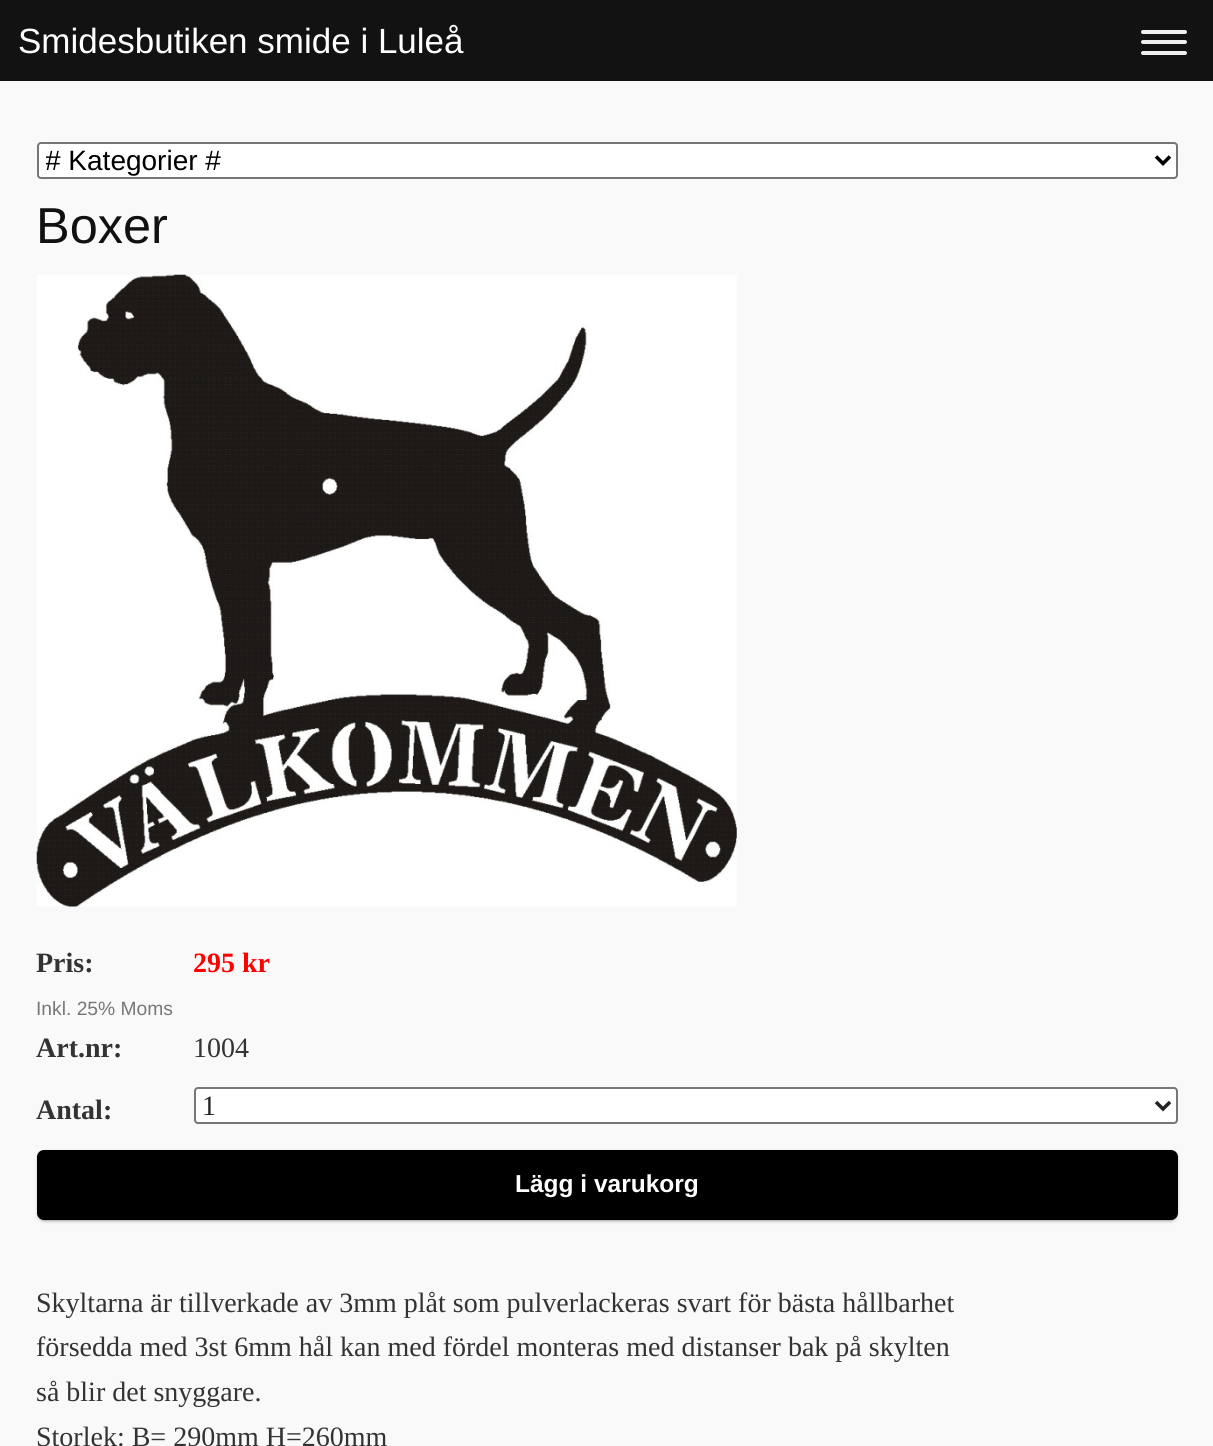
#include <cairo.h>
#include <math.h>
#include <stddef.h>

typedef struct { const char *family; double size; int italic, bold; unsigned color; } style_t;
static cairo_t *ctx;

static void ink(unsigned color) {
    cairo_set_source_rgb(ctx, (color >> 16) / 255.0, (color >> 8 & 255) / 255.0, (color & 255) / 255.0);
}

static void write(double x, double y, const char *s, const style_t *st) {
    cairo_select_font_face(ctx, st->family, st->italic ? CAIRO_FONT_SLANT_ITALIC : CAIRO_FONT_SLANT_NORMAL,
        st->bold ? CAIRO_FONT_WEIGHT_BOLD : CAIRO_FONT_WEIGHT_NORMAL);
    cairo_set_font_size(ctx, st->size);
    ink(st->color);
    cairo_move_to(ctx, x, y);
    cairo_show_text(ctx, s);
}

static void block(double x, double y, double w, double h, unsigned color) {
    ink(color);
    cairo_rectangle(ctx, x, y, w, h);
    cairo_fill(ctx);
}

static void round_path(double x, double y, double w, double h, double r) {
    cairo_new_sub_path(ctx);
    cairo_arc(ctx, x + w - r, y + h - r, r, 0, M_PI / 2);
    cairo_arc(ctx, x + r, y + h - r, r, M_PI / 2, M_PI);
    cairo_arc(ctx, x + r, y + r, r, M_PI, 1.5 * M_PI);
    cairo_arc(ctx, x + w - r, y + r, r, 1.5 * M_PI, 2 * M_PI);
    cairo_close_path(ctx);
}

static void blur_box(double x, double y, double w, double h, double r, double blur, double alpha) {
    cairo_push_group_with_content(ctx, CAIRO_CONTENT_ALPHA);
    cairo_set_operator(ctx, CAIRO_OPERATOR_SOURCE);
    for (int i = 15; i >= -15 && fmin(w, h) + blur * i / 3 > 0; i -= 2) {
        double e = blur * i / 6;
        cairo_set_source_rgba(ctx, 0, 0, 0, alpha * erfc((i - 1) / 8.5) / 2);
        round_path(x - e, y - e, w + 2 * e, h + 2 * e, fmax(0, fmin(r + e + blur * .6, fmin(w, h) / 2 + e)));
        cairo_fill(ctx);
    }
    cairo_pattern_t *soft = cairo_pop_group(ctx);
    cairo_mask(ctx, soft);
    cairo_pattern_destroy(soft);
}

static void paste(const char *path, double x, double y, double w, double h) {
    cairo_surface_t *image = cairo_image_surface_create_from_png(path);
    cairo_save(ctx);
    cairo_set_source_surface(ctx, image, x, y);
    cairo_rectangle(ctx, x, y, w, h);
    cairo_fill(ctx);
    cairo_restore(ctx);
    cairo_surface_destroy(image);
}

static const style_t s1 = {"Liberation Sans", 35, 0, 0, 0xffffff};
static const style_t s2 = {"Liberation Sans", 28, 0, 0, 0x000000};
static const style_t s3 = {"Liberation Sans", 50.5, 0, 0, 0x111111};
static const style_t s4 = {"Liberation Serif", 28, 0, 1, 0x333333};
static const style_t s5 = {"Liberation Serif", 28, 0, 1, 0xff0000};
static const style_t s6 = {"Liberation Sans", 19.25, 0, 0, 0x777777};
static const style_t s7 = {"Liberation Serif", 28, 0, 0, 0x333333};
static const style_t s8 = {"Liberation Serif", 28, 0, 0, 0x222222};
static const style_t s9 = {"Liberation Sans", 24.5, 0, 1, 0xffffff};

int main(void) {
    cairo_surface_t *surface = cairo_image_surface_create(CAIRO_FORMAT_RGB24, 1213, 1446);
    ctx = cairo_create(surface);
    cairo_font_options_t *options = cairo_font_options_create();
    cairo_font_options_set_hint_metrics(options, CAIRO_HINT_METRICS_OFF);
    cairo_font_options_set_hint_style(options, CAIRO_HINT_STYLE_NONE);
    cairo_set_font_options(ctx, options);
    cairo_set_miter_limit(ctx, 4);
    ink(0xf9f9f9);
    cairo_paint(ctx);
    block(0, 0, 1213, 81, 0x121212);
    write(18, 53, "Smidesbutiken smide i Luleå", &s1);
    ink(0xeeeeee);
    round_path(1141, 30, 46, 4, 2);
    cairo_fill(ctx);
    round_path(1141, 40, 46, 4, 2);
    cairo_fill(ctx);
    round_path(1141, 51, 46, 4, 2);
    cairo_fill(ctx);
    ink(0xffffff);
    round_path(38, 143, 1139, 35, 3);
    cairo_fill_preserve(ctx);
    ink(0x767676);
    cairo_stroke(ctx);
    cairo_new_path(ctx);
    cairo_move_to(ctx, 1156, 156.5);
    cairo_line_to(ctx, 1163, 163.5);
    cairo_line_to(ctx, 1170, 156.5);
    ink(0x000000);
    cairo_set_line_width(ctx, 3.5);
    cairo_stroke(ctx);
    cairo_save(ctx);
    cairo_rectangle(ctx, 46, 144, 1102, 33);
    cairo_clip(ctx);
    write(45, 170, "# Kategorier #", &s2);
    cairo_restore(ctx);
    write(36, 243, "Boxer", &s3);
    paste("pic1.png", 36, 274, 701, 633);
    write(36, 972, "Pris:", &s4);
    write(193, 972, "295 kr", &s5);
    write(36, 1015, "Inkl. 25% Moms", &s6);
    write(36, 1057, "Art.nr:", &s4);
    write(193, 1057, "1004", &s7);
    write(36, 1119, "Antal:", &s4);
    ink(0xffffff);
    round_path(195, 1088, 982, 35, 3);
    cairo_fill_preserve(ctx);
    ink(0x767676);
    cairo_set_line_width(ctx, 2);
    cairo_stroke(ctx);
    cairo_new_path(ctx);
    cairo_move_to(ctx, 1156, 1102);
    cairo_line_to(ctx, 1163, 1109);
    cairo_line_to(ctx, 1170, 1102);
    ink(0x222222);
    cairo_set_line_width(ctx, 3.5);
    cairo_stroke(ctx);
    write(202, 1115, "1", &s8);
    ink(0x000000);
    blur_box(39, 1153, 1137, 67, 5, 2, 0.6);
    ink(0x000000);
    round_path(37, 1150, 1141, 70, 7);
    cairo_fill(ctx);
    write(515, 1192, "Lägg i varukorg", &s9);
    write(36, 1312, "Skyltarna är tillverkade av 3mm plåt som pulverlackeras svart för bästa hållbarhet", &s7);
    write(36, 1356, "försedda med 3st 6mm hål kan med fördel monteras med distanser bak på skylten", &s7);
    write(36, 1401, "så blir det snyggare.", &s7);
    write(36, 1446, "Storlek: B= 290mm H=260mm", &s7);
    cairo_surface_write_to_png(surface, "screenshot.png");
    cairo_font_options_destroy(options);
    cairo_destroy(ctx);
    cairo_surface_destroy(surface);
    return 0;
}
